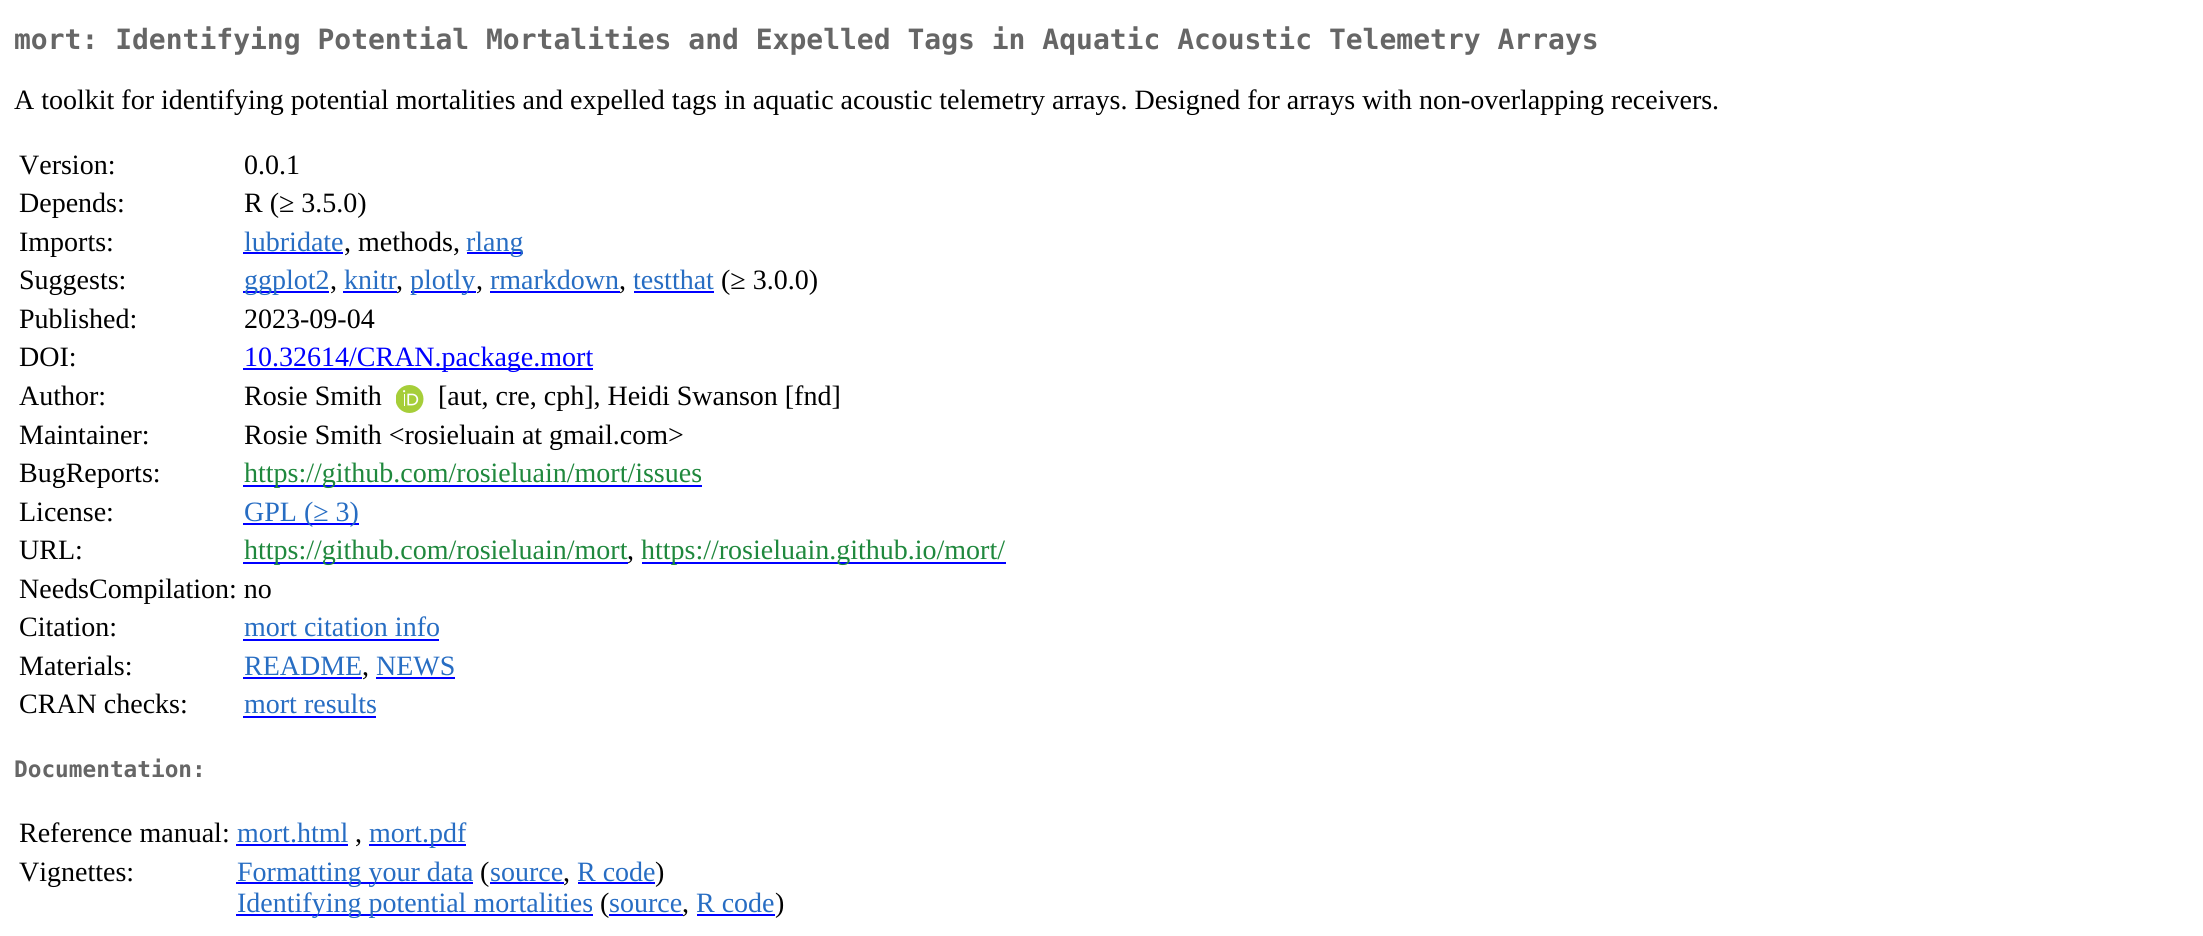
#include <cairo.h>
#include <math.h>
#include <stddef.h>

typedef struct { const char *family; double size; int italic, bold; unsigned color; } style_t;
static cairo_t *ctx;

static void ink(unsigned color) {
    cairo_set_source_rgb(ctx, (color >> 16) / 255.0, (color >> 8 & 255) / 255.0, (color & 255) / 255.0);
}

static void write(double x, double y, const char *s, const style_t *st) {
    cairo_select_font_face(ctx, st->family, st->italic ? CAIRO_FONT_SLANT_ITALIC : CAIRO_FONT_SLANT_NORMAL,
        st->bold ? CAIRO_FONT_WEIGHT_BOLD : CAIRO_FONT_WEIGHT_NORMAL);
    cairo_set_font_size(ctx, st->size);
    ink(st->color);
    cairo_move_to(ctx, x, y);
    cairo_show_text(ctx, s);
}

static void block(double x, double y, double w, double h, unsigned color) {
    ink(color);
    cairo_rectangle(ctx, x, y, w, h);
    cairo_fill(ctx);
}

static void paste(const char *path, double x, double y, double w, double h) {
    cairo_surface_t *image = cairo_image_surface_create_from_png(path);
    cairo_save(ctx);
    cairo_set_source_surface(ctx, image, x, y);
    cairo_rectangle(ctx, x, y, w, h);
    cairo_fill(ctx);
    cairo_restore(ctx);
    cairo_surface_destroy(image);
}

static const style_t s1 = {"DejaVu Sans Mono", 28, 0, 1, 0x666666};
static const style_t s2 = {"Liberation Serif", 28, 0, 0, 0x000000};
static const style_t s3 = {"Liberation Serif", 28, 0, 0, 0x276dc3};
static const style_t s4 = {"Liberation Serif", 28, 0, 0, 0x0000ff};
static const style_t s5 = {"Liberation Serif", 28, 0, 0, 0x1f883d};
static const style_t s6 = {"DejaVu Sans Mono", 22.75, 0, 1, 0x666666};

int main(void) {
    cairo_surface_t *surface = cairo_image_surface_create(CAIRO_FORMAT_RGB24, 2203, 936);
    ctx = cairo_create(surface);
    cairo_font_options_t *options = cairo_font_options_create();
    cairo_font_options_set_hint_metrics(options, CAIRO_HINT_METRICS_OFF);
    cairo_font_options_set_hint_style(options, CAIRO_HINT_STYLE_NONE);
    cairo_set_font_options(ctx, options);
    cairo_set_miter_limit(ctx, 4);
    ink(0xffffff);
    cairo_paint(ctx);
    write(14, 49, "mort: Identifying Potential Mortalities and Expelled Tags in Aquatic Acoustic Telemetry Arrays", &s1);
    write(14, 109, "A toolkit for identifying potential mortalities and expelled tags in aquatic acoustic telemetry arrays. Designed for arrays with non-overlapping receivers.", &s2);
    write(19, 174, "Version:", &s2);
    write(244, 174, "0.0.1", &s2);
    write(19, 212, "Depends:", &s2);
    write(244, 212, "R (≥ 3.5.0)", &s2);
    write(19, 251, "Imports:", &s2);
    write(244, 251, "lubridate", &s3);
    block(243, 252, 100, 2, 0x0000ff);
    write(344, 251, ", methods,", &s2);
    block(467, 252, 56, 2, 0x0000ff);
    write(466, 251, "rlang", &s3);
    write(19, 289, "Suggests:", &s2);
    block(243, 291, 86, 2, 0x0000ff);
    write(244, 289, "ggplot2", &s3);
    write(330, 289, ",", &s2);
    write(344, 289, "knitr", &s3);
    block(343, 291, 54, 2, 0x0000ff);
    write(396, 289, ",", &s2);
    block(411, 291, 65, 2, 0x0000ff);
    write(410, 289, "plotly", &s3);
    write(476, 289, ",", &s2);
    write(490, 289, "rmarkdown", &s3);
    block(490, 291, 130, 2, 0x0000ff);
    write(619, 289, ",", &s2);
    write(633, 289, "testthat", &s3);
    block(634, 291, 80, 2, 0x0000ff);
    write(721, 289, "(≥ 3.0.0)", &s2);
    write(19, 328, "Published:", &s2);
    write(244, 328, "2023-09-04", &s2);
    write(19, 366, "DOI:", &s2);
    block(243, 368, 350, 2, 0x0000ff);
    write(244, 366, "10.32614/CRAN.package.mort", &s4);
    write(19, 405, "Author:", &s2);
    write(244, 405, "Rosie Smith", &s2);
    paste("pic1.png", 396, 385, 28, 28);
    write(438, 405, "[aut, cre, cph], Heidi Swanson [fnd]", &s2);
    write(19, 444, "Maintainer:", &s2);
    write(244, 444, "Rosie Smith <rosieluain at gmail.com>", &s2);
    write(19, 482, "BugReports:", &s2);
    block(243, 485, 459, 2, 0x0000ff);
    write(244, 482, "https://github.com/rosieluain/mort/issues", &s5);
    write(19, 521, "License:", &s2);
    block(243, 523, 116, 2, 0x0000ff);
    write(244, 521, "GPL (≥ 3)", &s3);
    write(19, 559, "URL:", &s2);
    block(243, 562, 385, 2, 0x0000ff);
    write(244, 559, "https://github.com/rosieluain/mort", &s5);
    write(627, 559, ",", &s2);
    block(642, 562, 364, 2, 0x0000ff);
    write(641, 559, "https://rosieluain.github.io/mort/", &s5);
    write(19, 598, "NeedsCompilation: no", &s2);
    write(19, 636, "Citation:", &s2);
    write(244, 636, "mort citation info", &s3);
    block(243, 639, 196, 2, 0x0000ff);
    write(19, 675, "Materials:", &s2);
    write(244, 675, "README", &s3);
    block(243, 677, 119, 2, 0x0000ff);
    write(362, 675, ",", &s2);
    write(376, 675, "NEWS", &s3);
    block(376, 677, 79, 2, 0x0000ff);
    write(19, 713, "CRAN checks:", &s2);
    write(244, 713, "mort results", &s3);
    block(243, 716, 133, 2, 0x0000ff);
    write(14, 777, "Documentation:", &s6);
    write(19, 842, "Reference manual:", &s2);
    write(237, 842, "mort.html", &s3);
    block(236, 844, 112, 2, 0x0000ff);
    write(355, 842, ",", &s2);
    block(369, 844, 97, 2, 0x0000ff);
    write(369, 842, "mort.pdf", &s3);
    write(19, 881, "Vignettes:", &s2);
    block(236, 882, 237, 2, 0x0000ff);
    write(237, 881, "Formatting your data", &s3);
    write(480, 881, "(", &s2);
    write(490, 881, "source", &s3);
    block(490, 882, 74, 2, 0x0000ff);
    write(563, 881, ",", &s2);
    write(577, 881, "R code", &s3);
    block(578, 882, 77, 2, 0x0000ff);
    write(655, 881, ")", &s2);
    block(236, 914, 357, 2, 0x0000ff);
    write(237, 912, "Identifying potential mortalities", &s3);
    write(600, 912, "(", &s2);
    write(609, 912, "source", &s3);
    block(609, 914, 74, 2, 0x0000ff);
    write(682, 912, ",", &s2);
    write(696, 912, "R code", &s3);
    block(697, 914, 78, 2, 0x0000ff);
    write(775, 912, ")", &s2);
    cairo_surface_write_to_png(surface, "screenshot.png");
    cairo_font_options_destroy(options);
    cairo_destroy(ctx);
    cairo_surface_destroy(surface);
    return 0;
}
